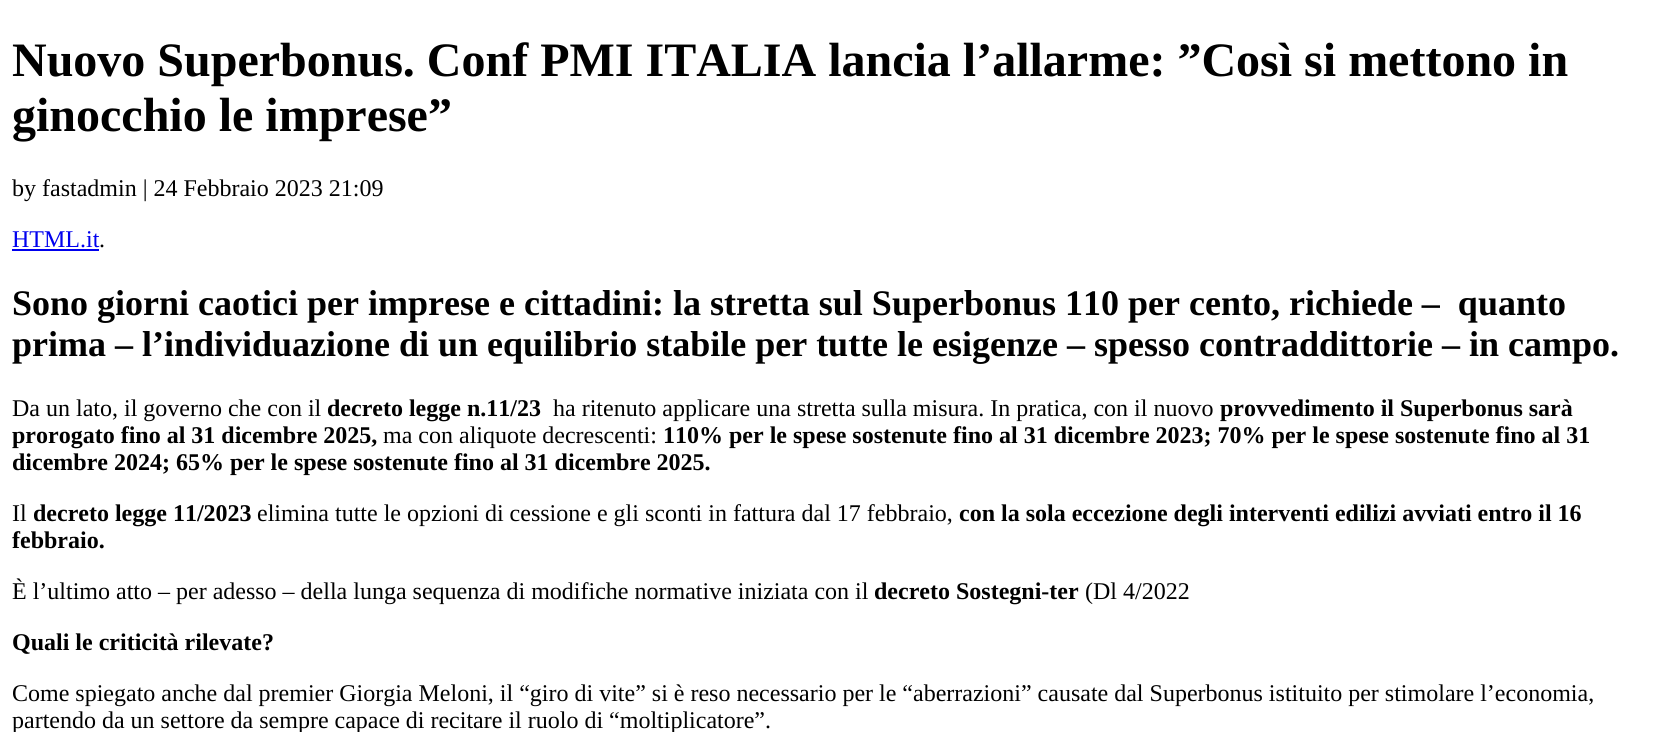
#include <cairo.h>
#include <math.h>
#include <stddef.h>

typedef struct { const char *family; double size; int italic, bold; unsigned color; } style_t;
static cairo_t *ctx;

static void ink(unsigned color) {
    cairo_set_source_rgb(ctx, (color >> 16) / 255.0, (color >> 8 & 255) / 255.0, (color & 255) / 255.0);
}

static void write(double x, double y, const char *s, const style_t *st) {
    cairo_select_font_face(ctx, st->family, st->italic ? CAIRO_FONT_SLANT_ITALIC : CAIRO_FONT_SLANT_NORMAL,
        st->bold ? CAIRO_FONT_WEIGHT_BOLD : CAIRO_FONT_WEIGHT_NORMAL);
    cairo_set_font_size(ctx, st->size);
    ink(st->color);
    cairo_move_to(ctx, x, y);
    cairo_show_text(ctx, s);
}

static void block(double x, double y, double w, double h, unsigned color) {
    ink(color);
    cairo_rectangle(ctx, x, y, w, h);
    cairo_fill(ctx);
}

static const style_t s1 = {"Liberation Serif", 48, 0, 1, 0x000000};
static const style_t s2 = {"Liberation Serif", 24, 0, 0, 0x000000};
static const style_t s3 = {"Liberation Serif", 24, 0, 0, 0x0000ee};
static const style_t s4 = {"Liberation Serif", 36, 0, 1, 0x000000};
static const style_t s5 = {"Liberation Serif", 24, 0, 1, 0x000000};

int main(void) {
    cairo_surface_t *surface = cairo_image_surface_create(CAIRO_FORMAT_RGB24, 1673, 732);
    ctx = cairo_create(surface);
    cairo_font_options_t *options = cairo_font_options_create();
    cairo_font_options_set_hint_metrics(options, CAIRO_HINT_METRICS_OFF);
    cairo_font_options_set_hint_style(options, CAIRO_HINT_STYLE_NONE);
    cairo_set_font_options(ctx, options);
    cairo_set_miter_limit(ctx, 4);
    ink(0xffffff);
    cairo_paint(ctx);
    write(12, 76, "Nuovo Superbonus. Conf PMI ITALIA lancia l’allarme: ”Così si mettono in", &s1);
    write(12, 131, "ginocchio le imprese”", &s1);
    write(12, 196, "by fastadmin | 24 Febbraio 2023 21:09", &s2);
    write(12, 247, "HTML.it", &s3);
    block(12, 249, 87, 2, 0x0000ee);
    write(99, 247, ".", &s2);
    write(12, 315, "Sono giorni caotici per imprese e cittadini: la stretta sul Superbonus 110 per cento, richiede –  quanto", &s4);
    write(12, 356, "prima – l’individuazione di un equilibrio stabile per tutte le esigenze – spesso contraddittorie – in campo.", &s4);
    write(12, 416, "Da un lato, il governo che con il", &s2);
    write(327, 416, "decreto legge n.11/23", &s5);
    write(553, 416, "ha ritenuto applicare una stretta sulla misura. In pratica, con il nuovo", &s2);
    write(1220, 416, "provvedimento il Superbonus sarà", &s5);
    write(12, 443, "prorogato fino al 31 dicembre 2025,", &s5);
    write(383, 443, "ma con aliquote decrescenti:", &s2);
    write(663, 443, "110% per le spese sostenute fino al 31 dicembre 2023; 70% per le spese sostenute fino al 31", &s5);
    write(12, 470, "dicembre 2024; 65% per le spese sostenute fino al 31 dicembre 2025.", &s5);
    write(12, 521, "Il", &s2);
    write(33, 521, "decreto legge 11/2023", &s5);
    write(257, 521, "elimina tutte le opzioni di cessione e gli sconti in fattura dal 17 febbraio,", &s2);
    write(959, 521, "con la sola eccezione degli interventi edilizi avviati entro il 16", &s5);
    write(12, 548, "febbraio.", &s5);
    write(12, 599, "È l’ultimo atto – per adesso – della lunga sequenza di modifiche normative iniziata con il", &s2);
    write(874, 599, "decreto Sostegni-ter", &s5);
    write(1085, 599, "(Dl 4/2022", &s2);
    write(12, 650, "Quali le criticità rilevate?", &s5);
    write(12, 701, "Come spiegato anche dal premier Giorgia Meloni, il “giro di vite” si è reso necessario per le “aberrazioni” causate dal Superbonus istituito per stimolare l’economia,", &s2);
    write(12, 728, "partendo da un settore da sempre capace di recitare il ruolo di “moltiplicatore”.", &s2);
    cairo_surface_write_to_png(surface, "screenshot.png");
    cairo_font_options_destroy(options);
    cairo_destroy(ctx);
    cairo_surface_destroy(surface);
    return 0;
}
